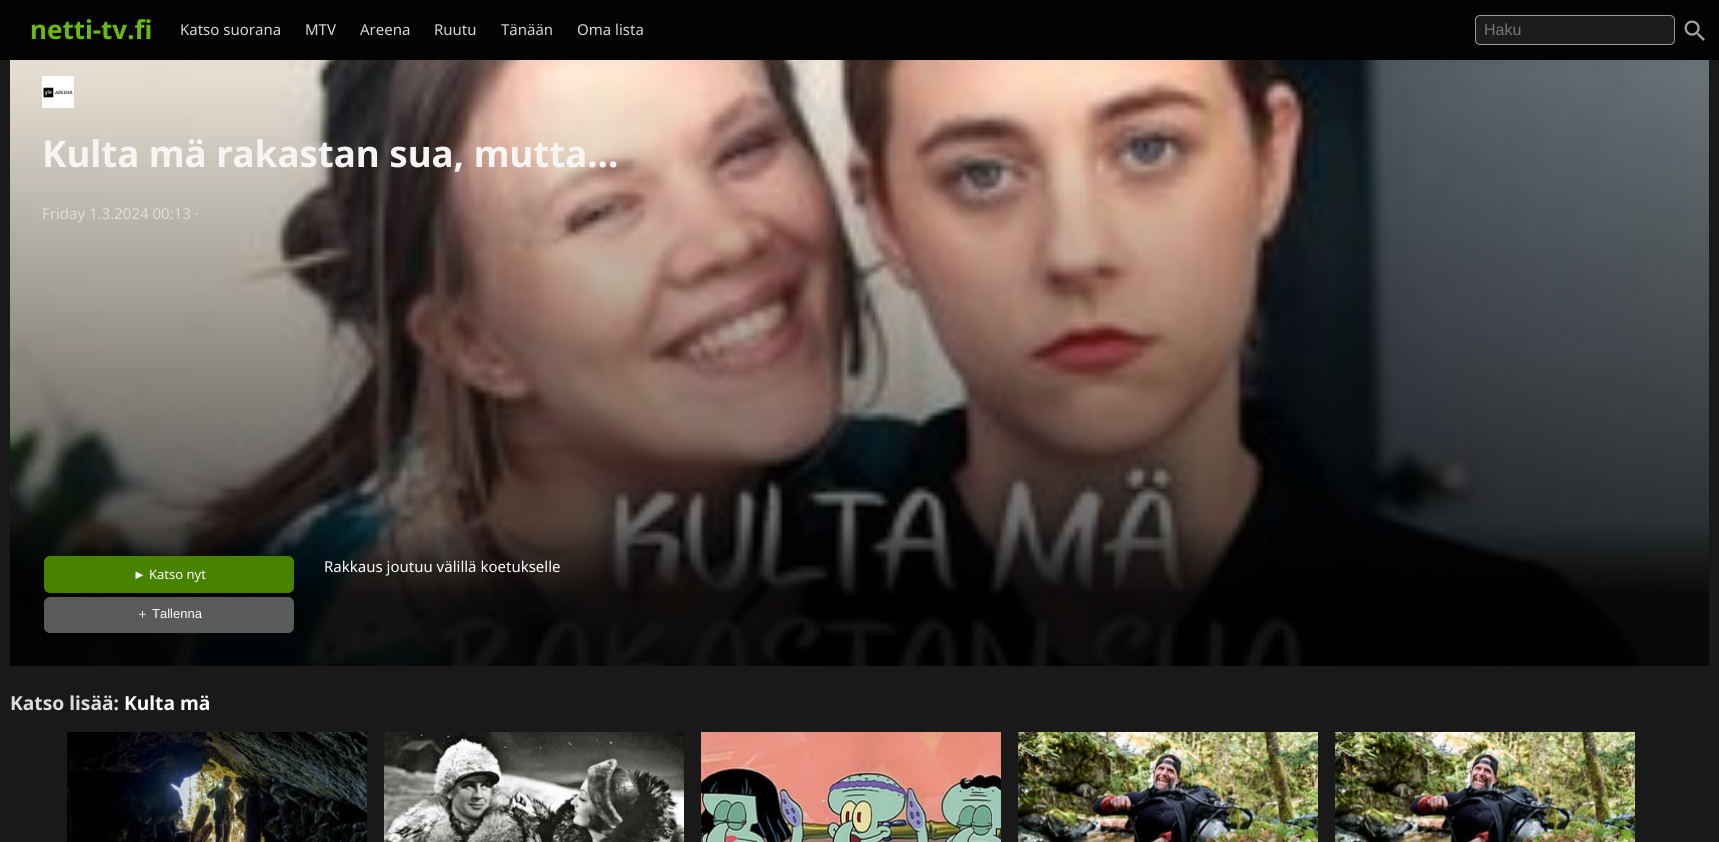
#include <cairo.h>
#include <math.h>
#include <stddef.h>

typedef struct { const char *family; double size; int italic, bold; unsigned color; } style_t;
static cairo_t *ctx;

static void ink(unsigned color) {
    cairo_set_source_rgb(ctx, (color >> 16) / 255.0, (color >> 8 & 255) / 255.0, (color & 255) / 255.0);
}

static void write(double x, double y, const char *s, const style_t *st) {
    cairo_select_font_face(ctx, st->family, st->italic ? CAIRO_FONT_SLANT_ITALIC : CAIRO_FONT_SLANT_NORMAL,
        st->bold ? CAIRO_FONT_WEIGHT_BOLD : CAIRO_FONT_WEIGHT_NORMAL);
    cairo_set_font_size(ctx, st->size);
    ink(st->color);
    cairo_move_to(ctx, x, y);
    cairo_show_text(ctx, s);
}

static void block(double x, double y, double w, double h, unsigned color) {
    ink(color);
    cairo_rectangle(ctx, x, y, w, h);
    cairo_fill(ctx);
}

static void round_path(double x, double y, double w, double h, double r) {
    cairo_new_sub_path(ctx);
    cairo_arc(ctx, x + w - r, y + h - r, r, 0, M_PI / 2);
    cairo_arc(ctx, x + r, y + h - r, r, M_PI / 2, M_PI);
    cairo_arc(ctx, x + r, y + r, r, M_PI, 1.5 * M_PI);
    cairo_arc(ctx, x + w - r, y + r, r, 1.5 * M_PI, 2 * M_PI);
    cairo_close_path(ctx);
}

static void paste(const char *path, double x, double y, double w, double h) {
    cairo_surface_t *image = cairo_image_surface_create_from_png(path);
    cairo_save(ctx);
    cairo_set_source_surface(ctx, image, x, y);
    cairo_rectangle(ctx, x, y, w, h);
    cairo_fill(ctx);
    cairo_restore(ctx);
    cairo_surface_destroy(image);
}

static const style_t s1 = {"Noto Sans", 26, 0, 1, 0x6bb80f};
static const style_t s2 = {"Noto Sans", 15, 0, 0, 0xd7d7d7};
static const style_t s3 = {"Liberation Sans", 16, 0, 0, 0x757575};
static const style_t s4 = {"Noto Sans", 36.75, 0, 1, 0xf7f5f4};
static const style_t s5 = {"Noto Sans", 15, 0, 0, 0xdddddd};
static const style_t s6 = {"Liberation Sans", 13, 0, 0, 0xffffff};
static const style_t s7 = {"Noto Sans", 13, 0, 0, 0xffffff};
static const style_t s8 = {"WenQuanYi Zen Hei Medium", 13, 0, 0, 0xffffff};
static const style_t s9 = {"Noto Sans", 15, 0, 0, 0xffffff};
static const style_t s10 = {"Noto Sans", 19.25, 0, 1, 0xdddddd};
static const style_t s11 = {"Noto Sans", 19.25, 0, 1, 0xffffff};

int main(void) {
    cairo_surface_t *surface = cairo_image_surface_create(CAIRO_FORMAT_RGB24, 1719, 842);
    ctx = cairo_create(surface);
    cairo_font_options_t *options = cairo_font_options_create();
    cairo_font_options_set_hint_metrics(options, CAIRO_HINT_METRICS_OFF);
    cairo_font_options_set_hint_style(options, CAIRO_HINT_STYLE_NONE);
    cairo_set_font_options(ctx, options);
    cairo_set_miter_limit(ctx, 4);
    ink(0x191919);
    cairo_paint(ctx);
    block(0, 0, 1719, 60, 0x030303);
    write(30, 39, "netti-tv.fi", &s1);
    write(180, 35, "Katso suorana", &s2);
    write(305, 35, "MTV", &s2);
    write(360, 35, "Areena", &s2);
    write(434, 35, "Ruutu", &s2);
    write(501, 35, "Tänään", &s2);
    write(577, 35, "Oma lista", &s2);
    ink(0x1c1c1c);
    round_path(1475.5, 15.5, 199, 29, 4.5);
    cairo_fill_preserve(ctx);
    ink(0x999999);
    cairo_set_line_width(ctx, 1);
    cairo_stroke(ctx);
    write(1484, 35, "Haku", &s3);
    paste("pic1.png", 1684, 20, 21, 21);
    paste("pic2.png", 10, 60, 1699, 606);
    paste("pic3.png", 42, 76, 32, 32);
    write(42, 167, "Kulta mä rakastan sua, mutta...", &s4);
    write(42, 219, "Friday 1.3.2024 00:13 ·", &s5);
    ink(0x478300);
    round_path(44, 556, 250, 37, 6);
    cairo_fill(ctx);
    write(133, 579, "►", &s6);
    write(149, 579, "Katso nyt", &s7);
    cairo_set_source_rgba(ctx, 0.392, 0.392, 0.392, 0.9);
    round_path(44, 597, 250, 36, 6);
    cairo_fill(ctx);
    write(136, 618, "＋", &s8);
    write(152, 618, "Tallenna", &s6);
    write(324, 572, "Rakkaus joutuu välillä koetukselle", &s9);
    write(10, 710, "Katso lisää:", &s10);
    write(124, 710, "Kulta mä", &s11);
    paste("pic4.png", 67, 732, 300, 110);
    paste("pic5.png", 384, 732, 300, 110);
    paste("pic6.png", 701, 732, 300, 110);
    paste("pic7.png", 1018, 732, 300, 110);
    paste("pic8.png", 1335, 732, 300, 110);
    cairo_surface_write_to_png(surface, "screenshot.png");
    cairo_font_options_destroy(options);
    cairo_destroy(ctx);
    cairo_surface_destroy(surface);
    return 0;
}
